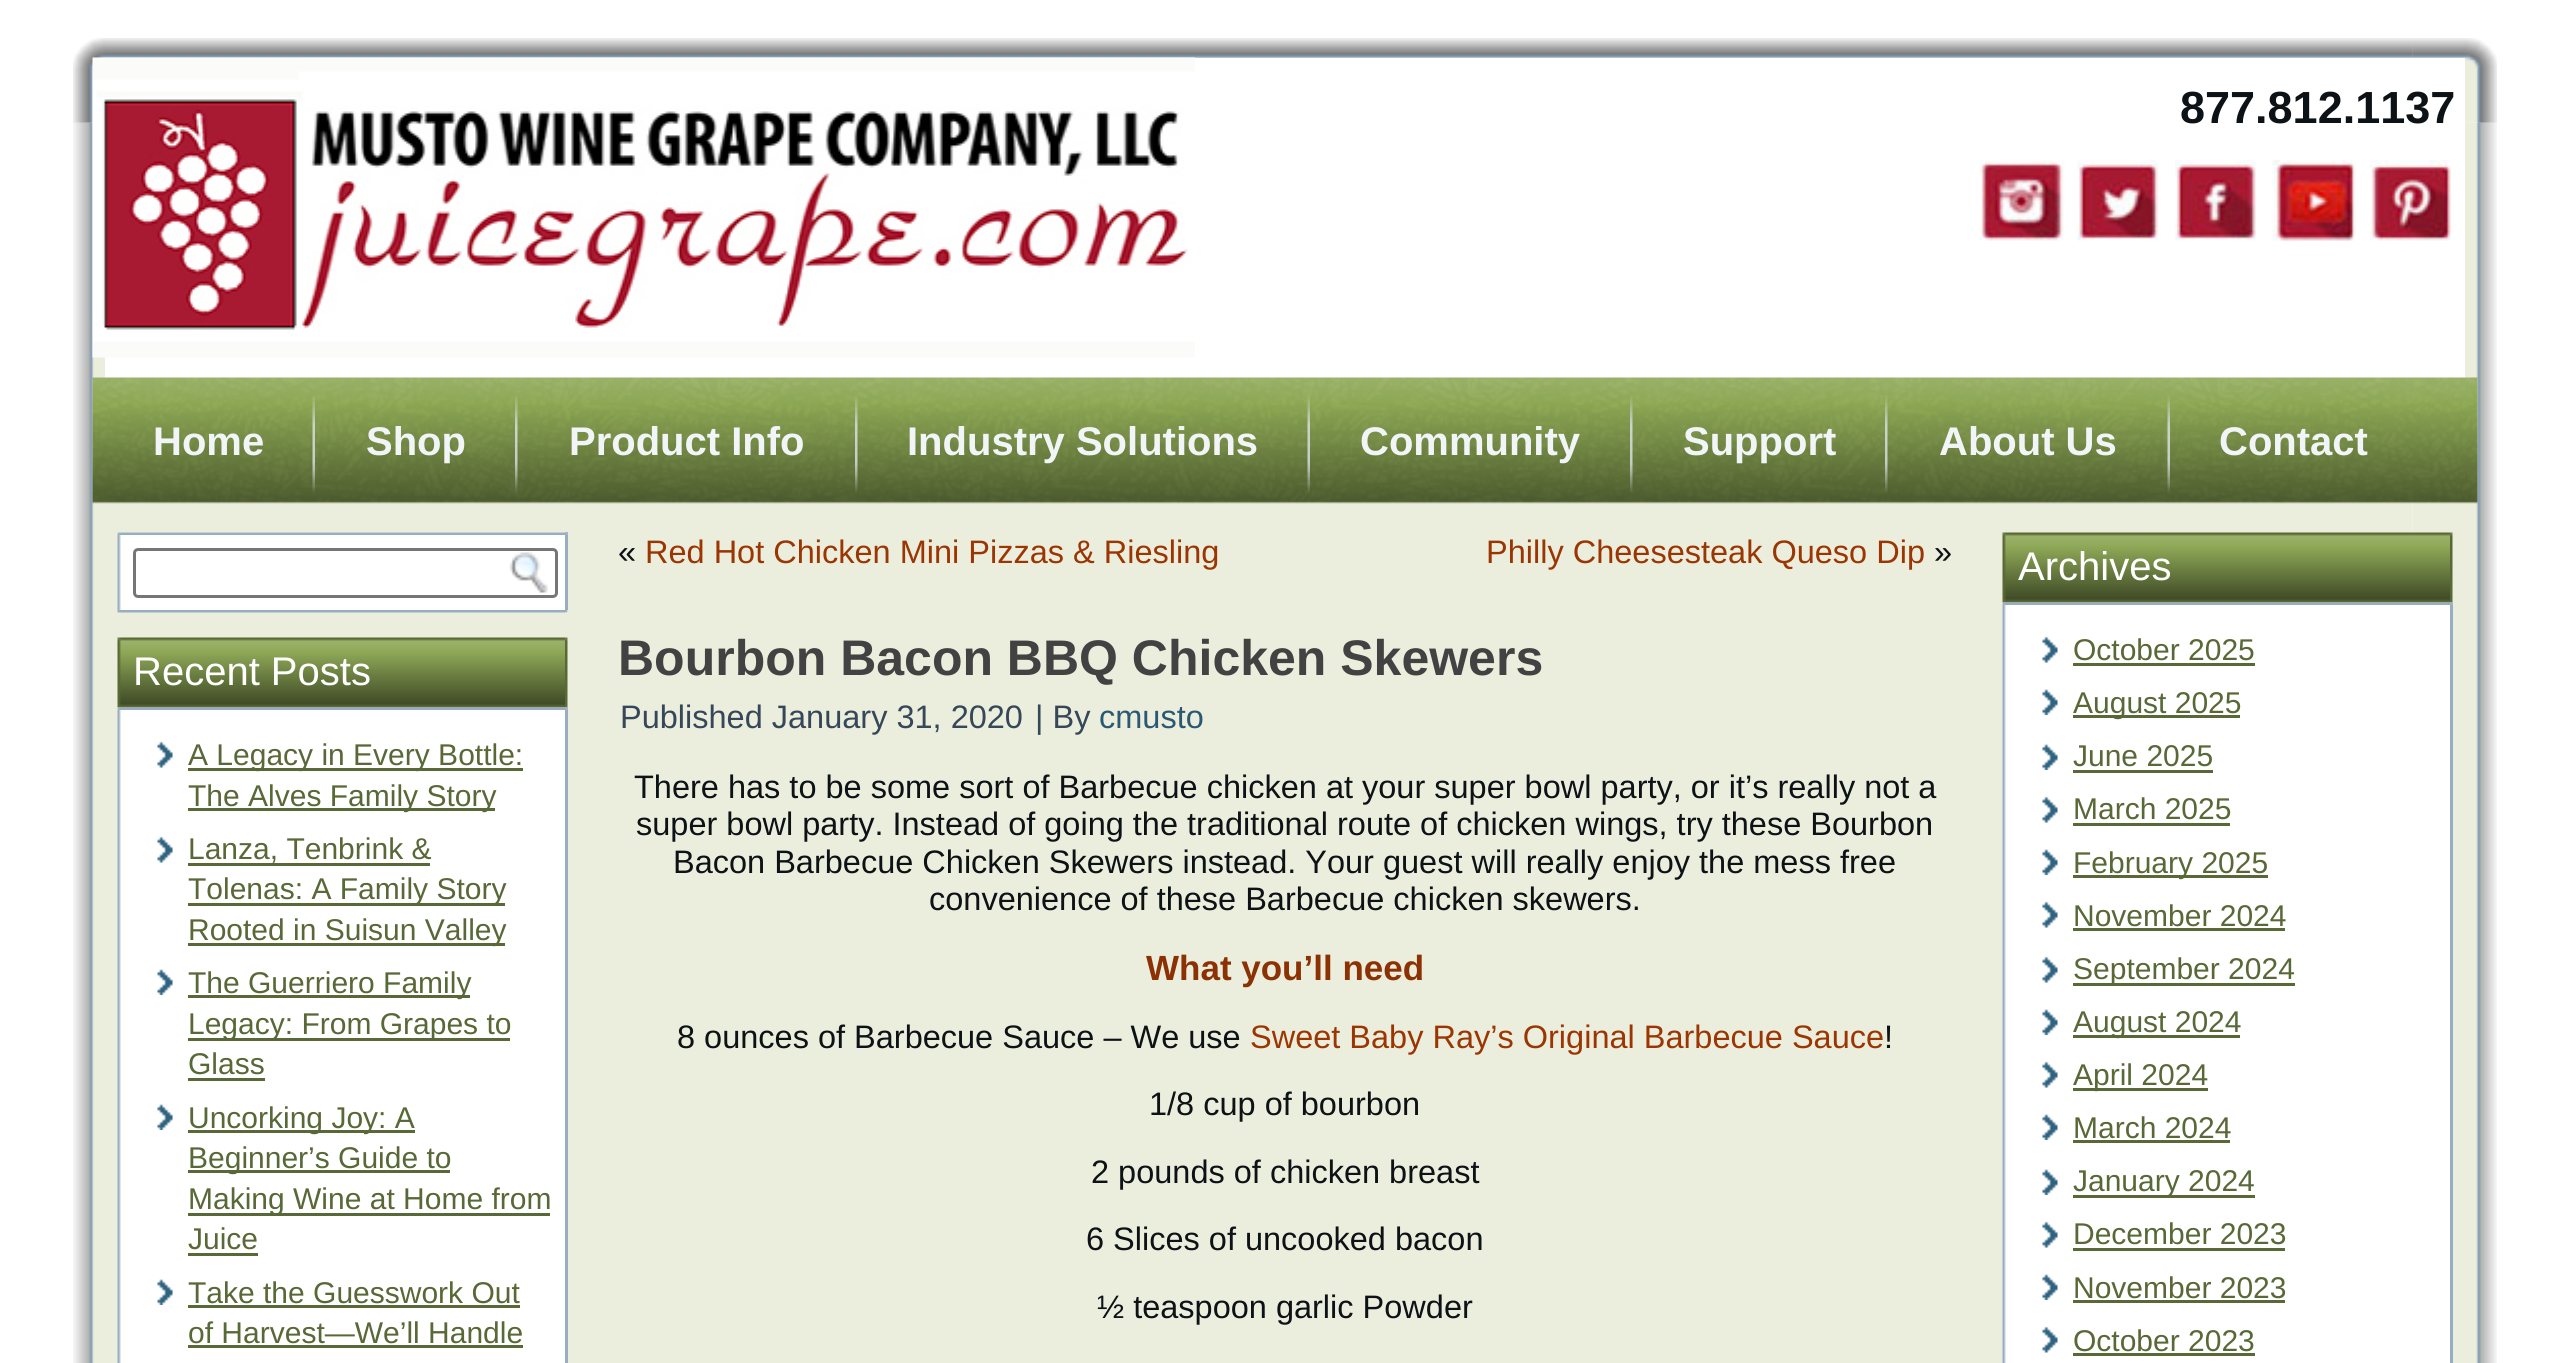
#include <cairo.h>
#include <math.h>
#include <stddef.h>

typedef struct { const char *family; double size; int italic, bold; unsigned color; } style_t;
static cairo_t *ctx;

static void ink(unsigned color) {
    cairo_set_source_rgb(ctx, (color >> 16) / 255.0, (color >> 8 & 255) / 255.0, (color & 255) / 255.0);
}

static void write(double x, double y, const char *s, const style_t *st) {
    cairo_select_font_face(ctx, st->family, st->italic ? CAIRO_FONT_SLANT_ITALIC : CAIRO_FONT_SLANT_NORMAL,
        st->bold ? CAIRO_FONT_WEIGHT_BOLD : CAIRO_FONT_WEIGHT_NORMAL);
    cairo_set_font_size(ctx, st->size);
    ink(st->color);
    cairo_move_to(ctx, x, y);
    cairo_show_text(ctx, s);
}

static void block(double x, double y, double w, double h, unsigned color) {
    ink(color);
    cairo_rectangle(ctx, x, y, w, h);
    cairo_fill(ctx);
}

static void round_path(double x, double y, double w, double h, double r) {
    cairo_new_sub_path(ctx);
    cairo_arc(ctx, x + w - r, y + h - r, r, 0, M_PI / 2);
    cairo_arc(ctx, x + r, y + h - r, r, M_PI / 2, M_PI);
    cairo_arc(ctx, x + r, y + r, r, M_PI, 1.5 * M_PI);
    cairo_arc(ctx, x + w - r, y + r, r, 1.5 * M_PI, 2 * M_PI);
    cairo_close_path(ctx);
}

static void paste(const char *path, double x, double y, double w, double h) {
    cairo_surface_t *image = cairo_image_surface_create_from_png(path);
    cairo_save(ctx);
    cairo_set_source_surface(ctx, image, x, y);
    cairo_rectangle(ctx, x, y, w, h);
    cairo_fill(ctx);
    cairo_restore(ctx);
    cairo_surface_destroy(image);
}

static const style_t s1 = {"Liberation Sans", 45, 0, 1, 0x0d1216};
static const style_t s2 = {"Liberation Sans", 40, 0, 1, 0xf2f5f7};
static const style_t s3 = {"Liberation Sans", 40, 0, 0, 0xffffff};
static const style_t s4 = {"Liberation Sans", 30, 0, 0, 0x586836};
static const style_t s5 = {"Liberation Sans", 32.5, 0, 0, 0x0d1216};
static const style_t s6 = {"Liberation Sans", 32.5, 0, 0, 0x9b3603};
static const style_t s7 = {"Liberation Sans", 50, 0, 1, 0x434242};
static const style_t s8 = {"Liberation Sans", 32.5, 0, 0, 0x364759};
static const style_t s9 = {"Liberation Sans", 32.5, 0, 0, 0x2b5973};
static const style_t s10 = {"Liberation Sans", 35, 0, 1, 0x8c3103};

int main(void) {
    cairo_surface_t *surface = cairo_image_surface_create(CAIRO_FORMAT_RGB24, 2568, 1363);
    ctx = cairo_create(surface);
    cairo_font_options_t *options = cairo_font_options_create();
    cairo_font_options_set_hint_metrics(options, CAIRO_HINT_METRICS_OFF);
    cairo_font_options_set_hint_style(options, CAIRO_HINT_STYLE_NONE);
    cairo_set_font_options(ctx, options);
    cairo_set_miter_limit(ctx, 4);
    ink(0xffffff);
    cairo_paint(ctx);
    paste("pic1.png", 73, 38, 2340, 85);
    paste("pic2.png", 73, 38, 2340, 85);
    paste("pic11.png", 73, 122, 2340, 1241);
    paste("pic12.png", 2412, 122, 85, 1241);
    paste("pic3.png", 2412, 38, 85, 85);
    paste("pic4.png", 2412, 38, 85, 85);
    block(105, 58, 2360, 320, 0xffffff);
    paste("pic5.png", 92, 57, 1103, 301);
    write(2180, 123, "877.812.1137", &s1);
    paste("pic6.png", 1980, 160, 85, 81);
    paste("pic7.png", 2077, 160, 82, 81);
    paste("pic8.png", 2175, 160, 81, 81);
    paste("pic9.png", 2272, 160, 84, 82);
    paste("pic10.png", 2370, 160, 81, 81);
    paste("pic13.png", 92, 377, 2373, 127);
    paste("pic14.png", 2465, 377, 13, 127);
    write(153, 455, "Home", &s2);
    paste("pic15.png", 312, 395, 3, 98);
    write(366, 455, "Shop", &s2);
    paste("pic16.png", 515, 395, 3, 98);
    write(569, 455, "Product Info", &s2);
    paste("pic17.png", 855, 395, 3, 98);
    write(907, 455, "Industry Solutions", &s2);
    paste("pic18.png", 1307, 395, 3, 98);
    write(1360, 455, "Community", &s2);
    paste("pic19.png", 1630, 395, 3, 98);
    write(1683, 455, "Support", &s2);
    paste("pic20.png", 1885, 395, 3, 98);
    write(1939, 455, "About Us", &s2);
    paste("pic21.png", 2167, 395, 3, 98);
    write(2219, 455, "Contact", &s2);
    paste("pic22.png", 117, 532, 448, 81);
    paste("pic23.png", 117, 532, 448, 3);
    block(565, 535, 3, 75, 0x99adc2);
    paste("pic24.png", 565, 532, 3, 81);
    cairo_set_source_rgba(ctx, 0.62, 0.698, 0.773, 0.86);
    cairo_rectangle(ctx, 565, 532, 3, 3);
    cairo_fill(ctx);
    paste("pic25.png", 117, 535, 448, 75);
    round_path(134.5, 549.5, 422, 47, 3.5);
    ink(0x767676);
    cairo_set_line_width(ctx, 3);
    cairo_stroke(ctx);
    paste("pic26.png", 509, 552, 39, 41);
    paste("pic27.png", 117, 637, 448, 71);
    paste("pic28.png", 565, 637, 3, 71);
    write(133, 685, "Recent Posts", &s3);
    paste("pic29.png", 117, 707, 448, 3);
    paste("pic30.png", 117, 707, 448, 3);
    cairo_set_source_rgba(ctx, 0.62, 0.698, 0.773, 0.86);
    cairo_rectangle(ctx, 565, 707, 3, 3);
    cairo_fill(ctx);
    paste("pic31.png", 565, 708, 2, 2);
    paste("pic32.png", 117, 710, 448, 653);
    block(565, 710, 3, 653, 0x99adc2);
    paste("pic33.png", 157, 741, 16, 27);
    block(188, 768, 335, 3, 0x586836);
    write(188, 765, "A Legacy in Every Bottle:", &s4);
    block(188, 808, 307, 3, 0x586836);
    write(188, 806, "The Alves Family Story", &s4);
    paste("pic33.png", 157, 836, 16, 27);
    write(188, 859, "Lanza, Tenbrink &", &s4);
    block(188, 863, 242, 3, 0x586836);
    block(188, 903, 317, 3, 0x586836);
    write(188, 899, "Tolenas: A Family Story", &s4);
    block(188, 943, 317, 3, 0x586836);
    write(188, 940, "Rooted in Suisun Valley", &s4);
    paste("pic34.png", 157, 969, 16, 26);
    block(188, 995, 282, 3, 0x586836);
    write(188, 993, "The Guerriero Family", &s4);
    block(188, 1038, 322, 3, 0x586836);
    write(188, 1034, "Legacy: From Grapes to", &s4);
    write(188, 1074, "Glass", &s4);
    block(188, 1078, 77, 3, 0x586836);
    paste("pic34.png", 157, 1104, 16, 26);
    block(188, 1130, 227, 3, 0x586836);
    write(188, 1128, "Uncorking Joy: A", &s4);
    block(188, 1170, 262, 3, 0x586836);
    write(188, 1168, "Beginner’s Guide to", &s4);
    block(188, 1213, 362, 3, 0x586836);
    write(188, 1209, "Making Wine at Home from", &s4);
    write(188, 1249, "Juice", &s4);
    block(188, 1253, 70, 3, 0x586836);
    paste("pic34.png", 157, 1279, 16, 26);
    write(188, 1303, "Take the Guesswork Out", &s4);
    block(188, 1305, 332, 3, 0x586836);
    write(188, 1343, "of Harvest—We’ll Handle", &s4);
    block(188, 1345, 335, 3, 0x586836);
    write(618, 563, "«", &s5);
    write(645, 563, "Red Hot Chicken Mini Pizzas & Riesling", &s6);
    write(1486, 563, "Philly Cheesesteak Queso Dip", &s6);
    write(1934, 563, "»", &s5);
    write(618, 675, "Bourbon Bacon BBQ Chicken Skewers", &s7);
    write(620, 728, "Published January 31, 2020", &s8);
    write(1035, 728, "| By", &s8);
    write(1099, 728, "cmusto", &s9);
    write(634, 798, "There has to be some sort of Barbecue chicken at your super bowl party, or it’s really not a", &s5);
    write(636, 835, "super bowl party. Instead of going the traditional route of chicken wings, try these Bourbon", &s5);
    write(673, 873, "Bacon Barbecue Chicken Skewers instead. Your guest will really enjoy the mess free", &s5);
    write(929, 910, "convenience of these Barbecue chicken skewers.", &s5);
    write(1146, 980, "What you’ll need", &s10);
    write(677, 1048, "8 ounces of Barbecue Sauce – We use", &s5);
    write(1250, 1048, "Sweet Baby Ray’s Original Barbecue Sauce", &s6);
    write(1884, 1048, "!", &s5);
    write(1149, 1115, "1/8 cup of bourbon", &s5);
    write(1091, 1183, "2 pounds of chicken breast", &s5);
    write(1086, 1250, "6 Slices of uncooked bacon", &s5);
    write(1097, 1318, "½ teaspoon garlic Powder", &s5);
    paste("pic35.png", 2002, 532, 448, 71);
    paste("pic28.png", 2450, 532, 3, 71);
    write(2018, 580, "Archives", &s3);
    paste("pic36.png", 2002, 602, 448, 3);
    paste("pic37.png", 2002, 602, 448, 3);
    cairo_set_source_rgba(ctx, 0.62, 0.698, 0.773, 0.86);
    cairo_rectangle(ctx, 2450, 602, 3, 3);
    cairo_fill(ctx);
    paste("pic31.png", 2450, 603, 2, 2);
    paste("pic38.png", 2002, 605, 448, 758);
    block(2450, 605, 3, 758, 0x99adc2);
    paste("pic39.png", 2042, 636, 16, 27);
    write(2073, 660, "October 2025", &s4);
    block(2073, 663, 182, 3, 0x586836);
    paste("pic40.png", 2042, 689, 16, 26);
    block(2073, 715, 167, 3, 0x586836);
    write(2073, 713, "August 2025", &s4);
    paste("pic40.png", 2042, 744, 16, 26);
    write(2073, 766, "June 2025", &s4);
    block(2073, 770, 140, 3, 0x586836);
    paste("pic39.png", 2042, 796, 16, 27);
    write(2073, 819, "March 2025", &s4);
    block(2073, 823, 157, 3, 0x586836);
    paste("pic40.png", 2042, 849, 16, 26);
    block(2073, 875, 195, 3, 0x586836);
    write(2073, 873, "February 2025", &s4);
    paste("pic39.png", 2042, 901, 16, 27);
    write(2073, 926, "November 2024", &s4);
    block(2073, 928, 212, 3, 0x586836);
    paste("pic39.png", 2042, 956, 16, 27);
    block(2073, 983, 222, 3, 0x586836);
    write(2073, 979, "September 2024", &s4);
    paste("pic40.png", 2042, 1009, 16, 26);
    block(2073, 1035, 167, 3, 0x586836);
    write(2073, 1032, "August 2024", &s4);
    paste("pic39.png", 2042, 1061, 16, 27);
    block(2073, 1088, 135, 3, 0x586836);
    write(2073, 1085, "April 2024", &s4);
    paste("pic40.png", 2042, 1114, 16, 26);
    write(2073, 1138, "March 2024", &s4);
    block(2073, 1140, 157, 3, 0x586836);
    paste("pic41.png", 2042, 1169, 16, 26);
    block(2073, 1195, 182, 3, 0x586836);
    write(2073, 1191, "January 2024", &s4);
    paste("pic39.png", 2042, 1221, 16, 27);
    write(2073, 1244, "December 2023", &s4);
    block(2073, 1248, 212, 3, 0x586836);
    paste("pic40.png", 2042, 1274, 16, 26);
    write(2073, 1298, "November 2023", &s4);
    block(2073, 1300, 212, 3, 0x586836);
    paste("pic39.png", 2042, 1326, 16, 27);
    write(2073, 1351, "October 2023", &s4);
    block(2073, 1353, 182, 3, 0x586836);
    cairo_surface_write_to_png(surface, "screenshot.png");
    cairo_font_options_destroy(options);
    cairo_destroy(ctx);
    cairo_surface_destroy(surface);
    return 0;
}
